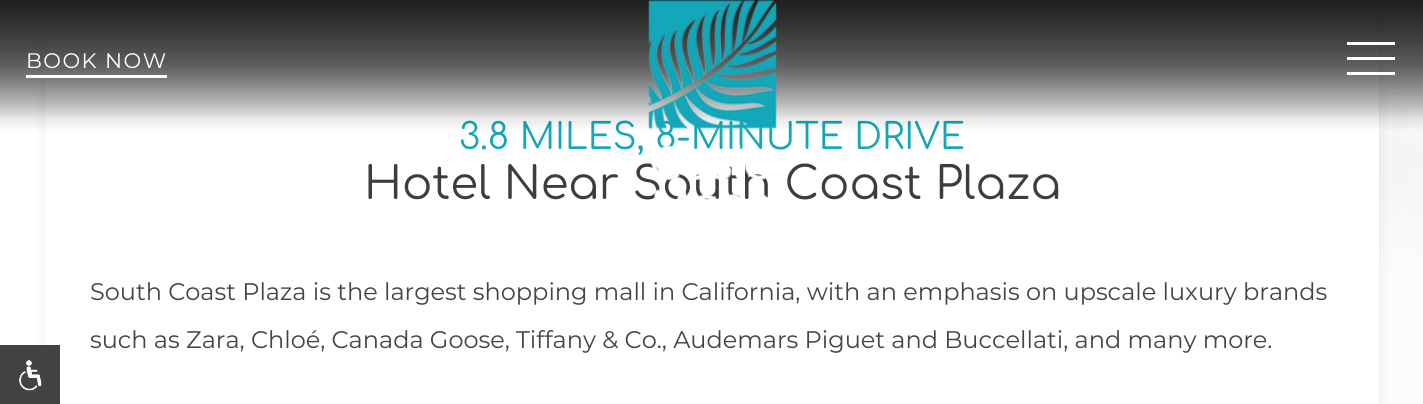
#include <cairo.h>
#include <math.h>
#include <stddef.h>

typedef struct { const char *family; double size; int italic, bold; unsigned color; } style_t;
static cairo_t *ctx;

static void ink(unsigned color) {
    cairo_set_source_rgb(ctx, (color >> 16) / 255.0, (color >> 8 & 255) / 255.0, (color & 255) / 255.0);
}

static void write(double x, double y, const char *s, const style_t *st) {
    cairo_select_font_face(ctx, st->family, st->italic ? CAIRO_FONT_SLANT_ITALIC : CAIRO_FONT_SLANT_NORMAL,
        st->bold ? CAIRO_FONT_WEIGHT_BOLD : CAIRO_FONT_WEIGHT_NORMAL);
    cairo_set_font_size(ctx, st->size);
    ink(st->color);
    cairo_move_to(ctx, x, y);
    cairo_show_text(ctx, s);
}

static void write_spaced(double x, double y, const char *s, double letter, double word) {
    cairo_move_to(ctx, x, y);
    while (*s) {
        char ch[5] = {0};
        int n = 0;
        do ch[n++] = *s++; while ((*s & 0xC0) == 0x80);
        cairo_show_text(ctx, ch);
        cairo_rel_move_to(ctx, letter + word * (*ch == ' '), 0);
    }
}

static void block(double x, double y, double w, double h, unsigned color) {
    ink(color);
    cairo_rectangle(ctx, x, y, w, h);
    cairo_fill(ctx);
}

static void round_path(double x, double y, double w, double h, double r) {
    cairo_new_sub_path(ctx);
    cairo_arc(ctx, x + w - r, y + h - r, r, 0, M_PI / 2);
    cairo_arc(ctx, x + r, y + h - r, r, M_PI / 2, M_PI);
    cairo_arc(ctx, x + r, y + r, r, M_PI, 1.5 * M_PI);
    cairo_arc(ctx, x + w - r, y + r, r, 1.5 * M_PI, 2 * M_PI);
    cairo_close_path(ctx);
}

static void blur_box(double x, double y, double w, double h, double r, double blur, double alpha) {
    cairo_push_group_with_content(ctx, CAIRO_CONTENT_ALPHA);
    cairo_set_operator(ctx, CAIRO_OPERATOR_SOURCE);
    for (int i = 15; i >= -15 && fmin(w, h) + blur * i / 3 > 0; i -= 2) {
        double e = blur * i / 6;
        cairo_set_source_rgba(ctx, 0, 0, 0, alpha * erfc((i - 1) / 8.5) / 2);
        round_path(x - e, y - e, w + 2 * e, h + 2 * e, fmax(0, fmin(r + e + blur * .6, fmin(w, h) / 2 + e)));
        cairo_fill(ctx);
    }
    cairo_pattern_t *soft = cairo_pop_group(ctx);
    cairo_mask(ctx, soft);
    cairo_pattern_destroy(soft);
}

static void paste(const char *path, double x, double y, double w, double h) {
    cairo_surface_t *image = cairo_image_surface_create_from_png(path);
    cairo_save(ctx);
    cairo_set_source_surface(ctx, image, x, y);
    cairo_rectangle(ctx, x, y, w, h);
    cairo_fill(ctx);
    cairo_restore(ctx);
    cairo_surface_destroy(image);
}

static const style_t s1 = {"Comfortaa", 36, 0, 0, 0x14a7b9};
static const style_t s2 = {"Comfortaa", 44.9, 0, 0, 0x3d3d3d};
static const style_t s3 = {"Montserrat", 24, 0, 0, 0x444444};

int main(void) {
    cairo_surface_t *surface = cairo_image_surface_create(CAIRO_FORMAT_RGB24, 1423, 404);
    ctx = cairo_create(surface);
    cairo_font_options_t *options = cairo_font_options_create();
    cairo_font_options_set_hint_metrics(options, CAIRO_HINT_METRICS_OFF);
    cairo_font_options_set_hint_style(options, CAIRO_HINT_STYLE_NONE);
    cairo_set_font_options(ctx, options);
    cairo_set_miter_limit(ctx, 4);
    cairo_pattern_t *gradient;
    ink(0xffffff);
    cairo_paint(ctx);
    paste("pic1.png", 607, 0, 816, 404);
    ink(0x000000);
    blur_box(45, 11, 1334, 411, 0, 6, 0.08);
    block(45, 8, 1334, 396, 0xffffff);
    gradient = cairo_pattern_create_linear(712, 120, 712, 0);
    cairo_pattern_add_color_stop_rgba(gradient, 0, 0, 0, 0, 0);
    cairo_pattern_add_color_stop_rgba(gradient, 0.5, 0, 0, 0, 0.35);
    cairo_pattern_add_color_stop_rgba(gradient, 1, 0, 0, 0, 0.65);
    cairo_set_source(ctx, gradient);
    cairo_pattern_destroy(gradient);
    cairo_rectangle(ctx, 0, 0, 1423, 116);
    cairo_fill(ctx);
    write(459, 149, "3.8 MILES, 8-MINUTE DRIVE", &s1);
    gradient = cairo_pattern_create_linear(712, 132, 712, 0);
    cairo_pattern_add_color_stop_rgba(gradient, 0, 0, 0, 0, 0);
    cairo_pattern_add_color_stop_rgba(gradient, 0.5, 0, 0, 0, 0.45);
    cairo_pattern_add_color_stop_rgba(gradient, 1, 0, 0, 0, 0.65);
    cairo_set_source(ctx, gradient);
    cairo_pattern_destroy(gradient);
    cairo_rectangle(ctx, 0, 0, 1423, 129);
    cairo_fill(ctx);
    cairo_select_font_face(ctx, "Montserrat", CAIRO_FONT_SLANT_NORMAL, CAIRO_FONT_WEIGHT_NORMAL);
    cairo_set_font_size(ctx, 21);
    ink(0xffffff);
    write_spaced(26, 68, "BOOK NOW", 1.5, 0);
    block(26, 75, 141, 3, 0xffffff);
    write(364, 199, "Hotel Near South Coast Plaza", &s2);
    paste("pic2.png", 648, 0, 129, 200);
    block(1347, 42, 48, 3, 0xffffff);
    block(1347, 57, 48, 3, 0xffffff);
    block(1347, 72, 48, 3, 0xffffff);
    write(90, 300, "South Coast Plaza is the largest shopping mall in California, with an emphasis on upscale luxury brands", &s3);
    write(90, 348, "such as Zara, Chloé, Canada Goose, Tiffany & Co., Audemars Piguet and Buccellati, and many more.", &s3);
    block(0, 345, 60, 59, 0x424242);
    paste("pic3.png", 19, 360, 23, 31);
    cairo_surface_write_to_png(surface, "screenshot.png");
    cairo_font_options_destroy(options);
    cairo_destroy(ctx);
    cairo_surface_destroy(surface);
    return 0;
}
